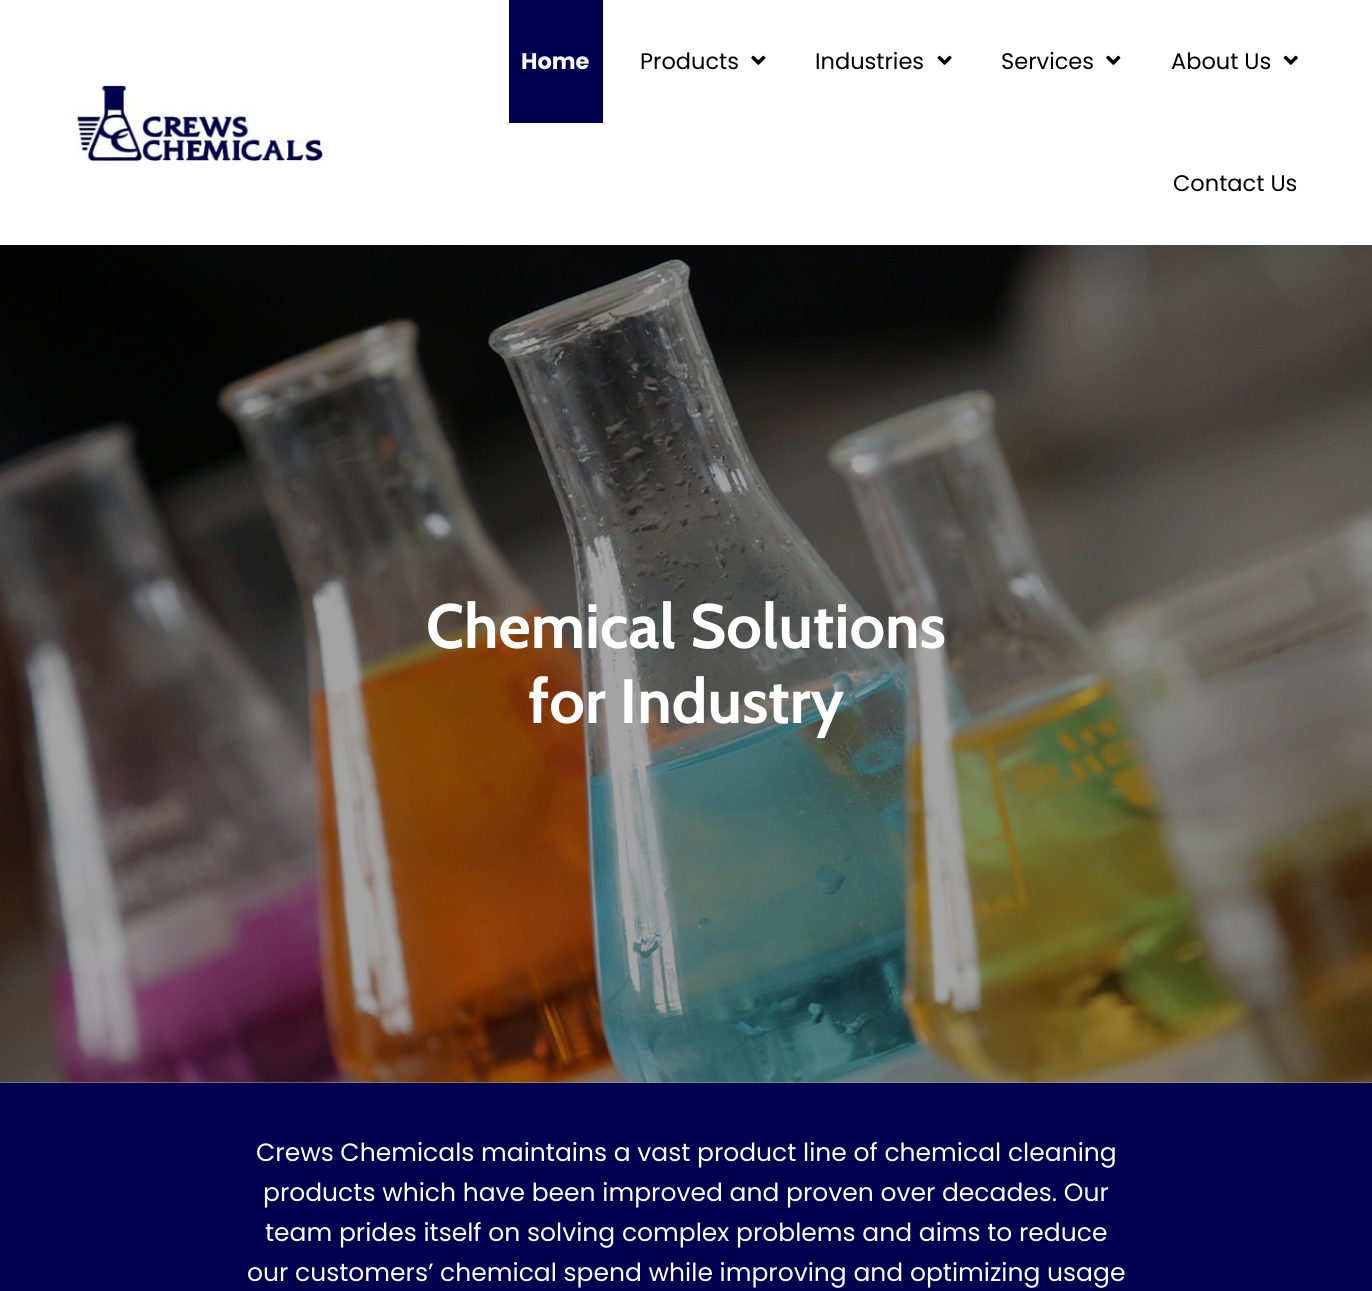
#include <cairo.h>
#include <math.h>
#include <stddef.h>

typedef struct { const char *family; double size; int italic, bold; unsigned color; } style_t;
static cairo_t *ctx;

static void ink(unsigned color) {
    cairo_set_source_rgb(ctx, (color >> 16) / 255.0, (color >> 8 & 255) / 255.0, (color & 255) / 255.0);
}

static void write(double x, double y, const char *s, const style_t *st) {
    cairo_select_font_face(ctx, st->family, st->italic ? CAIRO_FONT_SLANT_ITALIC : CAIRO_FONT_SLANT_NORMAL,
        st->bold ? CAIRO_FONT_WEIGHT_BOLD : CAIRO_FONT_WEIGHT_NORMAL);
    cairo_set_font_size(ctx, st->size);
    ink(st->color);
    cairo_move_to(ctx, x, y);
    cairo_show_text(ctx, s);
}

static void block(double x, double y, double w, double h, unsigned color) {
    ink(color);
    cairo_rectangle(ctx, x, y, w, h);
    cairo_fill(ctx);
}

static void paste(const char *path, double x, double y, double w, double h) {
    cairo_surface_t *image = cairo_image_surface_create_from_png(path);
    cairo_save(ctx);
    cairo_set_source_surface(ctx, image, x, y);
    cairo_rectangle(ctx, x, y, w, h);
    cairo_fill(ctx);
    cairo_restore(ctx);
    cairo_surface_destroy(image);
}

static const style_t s1 = {"Poppins", 22.5, 0, 1, 0xffffff};
static const style_t s2 = {"Poppins", 22.5, 0, 0, 0x000000};
static const style_t s3 = {"Cabin", 62.5, 0, 1, 0xffffff};
static const style_t s4 = {"Poppins", 25, 0, 0, 0xffffff};

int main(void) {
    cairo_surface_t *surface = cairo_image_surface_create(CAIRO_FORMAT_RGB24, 1372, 1291);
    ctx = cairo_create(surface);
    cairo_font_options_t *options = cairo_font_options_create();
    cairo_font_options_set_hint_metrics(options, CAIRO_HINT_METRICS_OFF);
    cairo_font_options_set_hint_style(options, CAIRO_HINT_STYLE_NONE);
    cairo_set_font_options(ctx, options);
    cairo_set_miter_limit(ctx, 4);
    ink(0xa3a3a3);
    cairo_paint(ctx);
    block(0, 0, 1372, 245, 0xffffff);
    paste("pic1.png", 75, 83, 249, 85);
    block(509, 0, 94, 123, 0x010050);
    write(521, 69, "Home", &s1);
    write(640, 69, "Products", &s2);
    paste("pic2.png", 751, 55, 15, 10);
    write(815, 69, "Industries", &s2);
    paste("pic3.png", 937, 55, 15, 10);
    write(1001, 69, "Services", &s2);
    paste("pic2.png", 1106, 55, 15, 10);
    write(1171, 69, "About Us", &s2);
    paste("pic4.png", 1283, 55, 15, 10);
    write(1173, 191, "Contact Us", &s2);
    paste("pic5.png", 0, 245, 1372, 838);
    write(426, 648, "Chemical Solutions", &s3);
    write(528, 723, "for Industry", &s3);
    block(0, 1083, 1372, 208, 0x010050);
    write(256, 1161, "Crews Chemicals maintains a vast product line of chemical cleaning", &s4);
    write(263, 1201, "products which have been improved and proven over decades. Our", &s4);
    write(265, 1241, "team prides itself on solving complex problems and aims to reduce", &s4);
    write(247, 1281, "our customers’ chemical spend while improving and optimizing usage", &s4);
    cairo_surface_write_to_png(surface, "screenshot.png");
    cairo_font_options_destroy(options);
    cairo_destroy(ctx);
    cairo_surface_destroy(surface);
    return 0;
}
